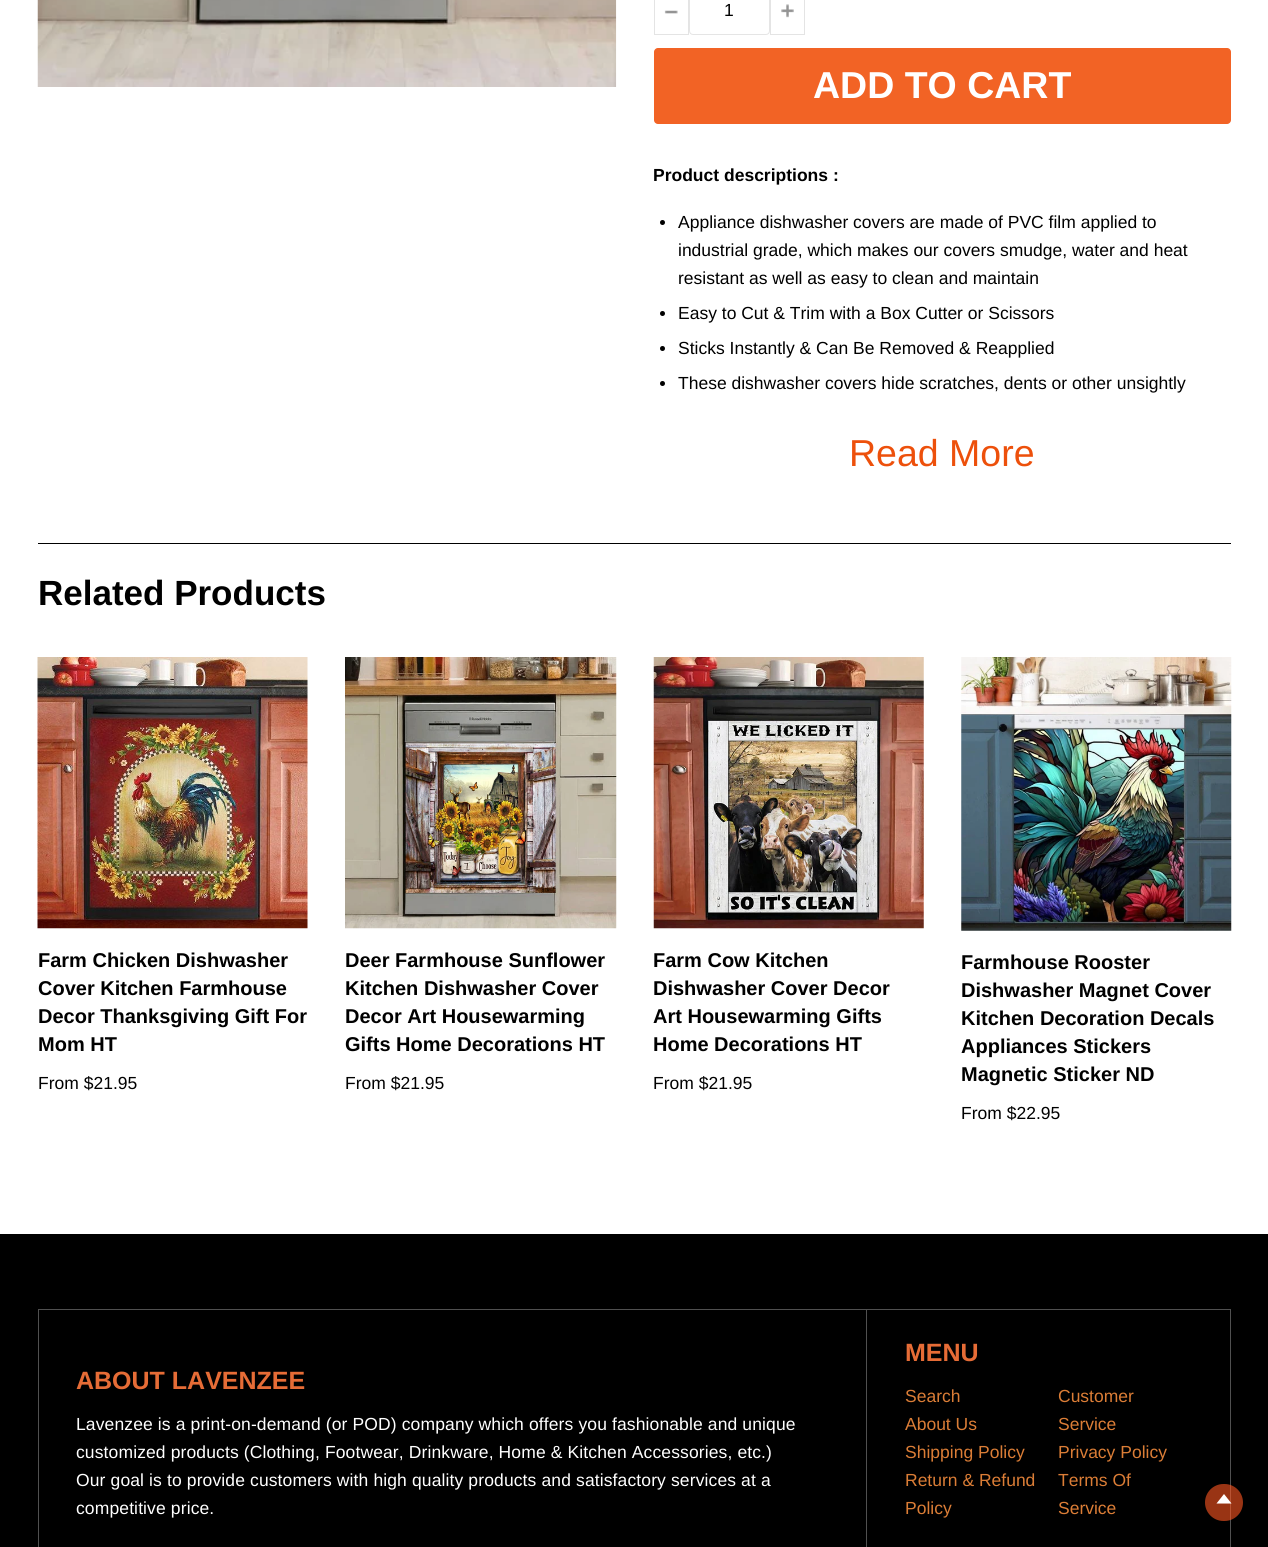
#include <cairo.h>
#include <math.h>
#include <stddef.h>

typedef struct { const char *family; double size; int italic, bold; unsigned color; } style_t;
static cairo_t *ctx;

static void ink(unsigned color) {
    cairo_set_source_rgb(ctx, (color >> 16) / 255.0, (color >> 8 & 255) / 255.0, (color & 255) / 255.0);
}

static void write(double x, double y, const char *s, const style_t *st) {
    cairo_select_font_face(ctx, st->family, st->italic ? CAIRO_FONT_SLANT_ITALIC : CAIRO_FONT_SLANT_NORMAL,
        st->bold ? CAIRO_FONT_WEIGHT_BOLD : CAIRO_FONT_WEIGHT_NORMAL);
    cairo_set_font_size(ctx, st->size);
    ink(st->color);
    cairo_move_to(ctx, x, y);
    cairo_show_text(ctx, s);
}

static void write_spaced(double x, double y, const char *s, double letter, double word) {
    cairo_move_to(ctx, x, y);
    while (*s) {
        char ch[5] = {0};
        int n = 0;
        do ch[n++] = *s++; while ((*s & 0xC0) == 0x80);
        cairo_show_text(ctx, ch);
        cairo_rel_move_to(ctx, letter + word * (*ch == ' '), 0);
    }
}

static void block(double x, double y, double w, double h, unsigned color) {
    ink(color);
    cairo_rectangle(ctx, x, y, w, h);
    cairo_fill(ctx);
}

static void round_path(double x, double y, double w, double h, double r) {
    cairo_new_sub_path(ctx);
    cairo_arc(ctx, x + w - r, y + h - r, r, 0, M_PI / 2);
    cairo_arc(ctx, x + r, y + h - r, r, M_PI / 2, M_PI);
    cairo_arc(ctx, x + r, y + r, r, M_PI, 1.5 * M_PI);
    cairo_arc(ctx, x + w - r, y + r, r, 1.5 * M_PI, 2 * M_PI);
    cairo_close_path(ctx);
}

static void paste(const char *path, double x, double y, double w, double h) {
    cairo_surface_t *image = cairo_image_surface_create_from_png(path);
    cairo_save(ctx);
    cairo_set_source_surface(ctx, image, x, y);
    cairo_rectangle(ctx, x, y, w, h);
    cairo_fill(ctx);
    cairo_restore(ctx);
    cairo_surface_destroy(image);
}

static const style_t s1 = {"Liberation Sans", 17.5, 0, 0, 0x000000};
static const style_t s2 = {"Liberation Sans", 37.5, 0, 1, 0xffffff};
static const style_t s3 = {"Liberation Sans", 17.5, 0, 1, 0x000000};
static const style_t s4 = {"Liberation Sans", 37.5, 0, 0, 0xed500b};
static const style_t s5 = {"Liberation Sans", 35, 0, 1, 0x000000};
static const style_t s6 = {"Liberation Sans", 20, 0, 1, 0x000000};
static const style_t s7 = {"Liberation Sans", 25, 0, 1, 0xe66c36};
static const style_t s8 = {"Liberation Sans", 17.5, 0, 0, 0xdb7d36};

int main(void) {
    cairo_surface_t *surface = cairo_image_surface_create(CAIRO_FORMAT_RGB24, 1268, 1547);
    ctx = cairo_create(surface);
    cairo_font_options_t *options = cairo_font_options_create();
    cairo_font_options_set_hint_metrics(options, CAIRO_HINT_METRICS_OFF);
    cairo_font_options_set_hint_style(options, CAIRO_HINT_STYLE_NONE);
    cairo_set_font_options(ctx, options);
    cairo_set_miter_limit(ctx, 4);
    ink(0xffffff);
    cairo_paint(ctx);
    paste("pic1.png", 37, 0, 580, 87);
    cairo_rectangle(ctx, 654.5, -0.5, 34, 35);
    ink(0xe4e4e4);
    cairo_set_line_width(ctx, 1);
    cairo_stroke(ctx);
    paste("pic2.png", 664, 10, 14, 4);
    round_path(689.5, -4.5, 80, 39, 3.5);
    ink(0xe5e5e5);
    cairo_stroke(ctx);
    write(724, 16, "1", &s1);
    cairo_rectangle(ctx, 770.5, -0.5, 34, 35);
    ink(0xe4e4e4);
    cairo_stroke(ctx);
    paste("pic3.png", 781, 4, 13, 14);
    ink(0xf26325);
    round_path(654, 48, 577, 76, 4);
    cairo_fill(ctx);
    write(813, 98, "ADD TO CART", &s2);
    write(653, 181, "Product descriptions :", &s3);
    cairo_new_path(ctx);
    cairo_arc(ctx, 662.5, 222.5, 2.5, 0, 2 * M_PI);
    cairo_fill(ctx);
    write(678, 228, "Appliance dishwasher covers are made of PVC film applied to", &s1);
    write(678, 256, "industrial grade, which makes our covers smudge, water and heat", &s1);
    write(678, 284, "resistant as well as easy to clean and maintain", &s1);
    cairo_new_path(ctx);
    cairo_arc(ctx, 662.5, 313.5, 2.5, 0, 2 * M_PI);
    cairo_fill(ctx);
    write(678, 319, "Easy to Cut & Trim with a Box Cutter or Scissors", &s1);
    cairo_new_path(ctx);
    cairo_arc(ctx, 662.5, 348.5, 2.5, 0, 2 * M_PI);
    cairo_fill(ctx);
    write(678, 354, "Sticks Instantly & Can Be Removed & Reapplied", &s1);
    cairo_new_path(ctx);
    cairo_arc(ctx, 662.5, 383.5, 2.5, 0, 2 * M_PI);
    cairo_fill(ctx);
    write(678, 389, "These dishwasher covers hide scratches, dents or other unsightly", &s1);
    write(849, 466, "Read More", &s4);
    block(38, 543, 1193, 1, 0x000000);
    write(38, 605, "Related Products", &s5);
    paste("pic4.png", 37, 657, 271, 272);
    write(38, 967, "Farm Chicken Dishwasher", &s6);
    write(38, 995, "Cover Kitchen Farmhouse", &s6);
    write(38, 1023, "Decor Thanksgiving Gift For", &s6);
    write(38, 1051, "Mom HT", &s6);
    write(38, 1089, "From $21.95", &s1);
    paste("pic5.png", 345, 657, 272, 272);
    write(345, 967, "Deer Farmhouse Sunflower", &s6);
    write(345, 995, "Kitchen Dishwasher Cover", &s6);
    write(345, 1023, "Decor Art Housewarming", &s6);
    write(345, 1051, "Gifts Home Decorations HT", &s6);
    write(345, 1089, "From $21.95", &s1);
    paste("pic6.png", 653, 657, 271, 272);
    write(653, 967, "Farm Cow Kitchen", &s6);
    write(653, 995, "Dishwasher Cover Decor", &s6);
    write(653, 1023, "Art Housewarming Gifts", &s6);
    write(653, 1051, "Home Decorations HT", &s6);
    write(653, 1089, "From $21.95", &s1);
    paste("pic7.png", 961, 657, 271, 274);
    write(961, 969, "Farmhouse Rooster", &s6);
    write(961, 997, "Dishwasher Magnet Cover", &s6);
    write(961, 1025, "Kitchen Decoration Decals", &s6);
    write(961, 1053, "Appliances Stickers", &s6);
    write(961, 1081, "Magnetic Sticker ND", &s6);
    write(961, 1119, "From $22.95", &s1);
    block(0, 1234, 1268, 313, 0x000000);
    block(38, 1309, 1193, 1, 0x505050);
    block(1230, 1309, 1, 238, 0x505050);
    block(38, 1309, 1, 238, 0x505050);
    block(866, 1310, 1, 237, 0x505050);
    write(76, 1389, "ABOUT LAVENZEE", &s7);
    cairo_select_font_face(ctx, "Liberation Sans", CAIRO_FONT_SLANT_NORMAL, CAIRO_FONT_WEIGHT_NORMAL);
    cairo_set_font_size(ctx, 17.5);
    ink(0xffffff);
    write_spaced(76, 1430, "Lavenzee is a print-on-demand (or POD) company which offers you fashionable and unique", 0.12, 0);
    write_spaced(76, 1458, "customized products (Clothing, Footwear, Drinkware, Home & Kitchen Accessories, etc.)", 0.12, 0);
    write_spaced(76, 1486, "Our goal is to provide customers with high quality products and satisfactory services at a", 0.12, 0);
    write_spaced(76, 1514, "competitive price.", 0.12, 0);
    write(905, 1361, "MENU", &s7);
    write(905, 1402, "Search", &s8);
    write(1058, 1402, "Customer", &s8);
    write(1058, 1430, "Service", &s8);
    write(905, 1430, "About Us", &s8);
    write(905, 1458, "Shipping Policy", &s8);
    write(1058, 1458, "Privacy Policy", &s8);
    write(905, 1486, "Return & Refund", &s8);
    write(905, 1514, "Policy", &s8);
    write(1058, 1486, "Terms Of", &s8);
    write(1058, 1514, "Service", &s8);
    cairo_set_source_rgba(ctx, 1, 0.341, 0.133, 0.6);
    round_path(1205, 1484, 38, 37, 18.5);
    cairo_fill(ctx);
    ink(0xffffff);
    cairo_new_path(ctx);
    cairo_move_to(ctx, 1231.5, 1503.5);
    cairo_line_to(ctx, 1224, 1494);
    cairo_line_to(ctx, 1216.5, 1503.5);
    cairo_close_path(ctx);
    cairo_fill(ctx);
    cairo_surface_write_to_png(surface, "screenshot.png");
    cairo_font_options_destroy(options);
    cairo_destroy(ctx);
    cairo_surface_destroy(surface);
    return 0;
}
